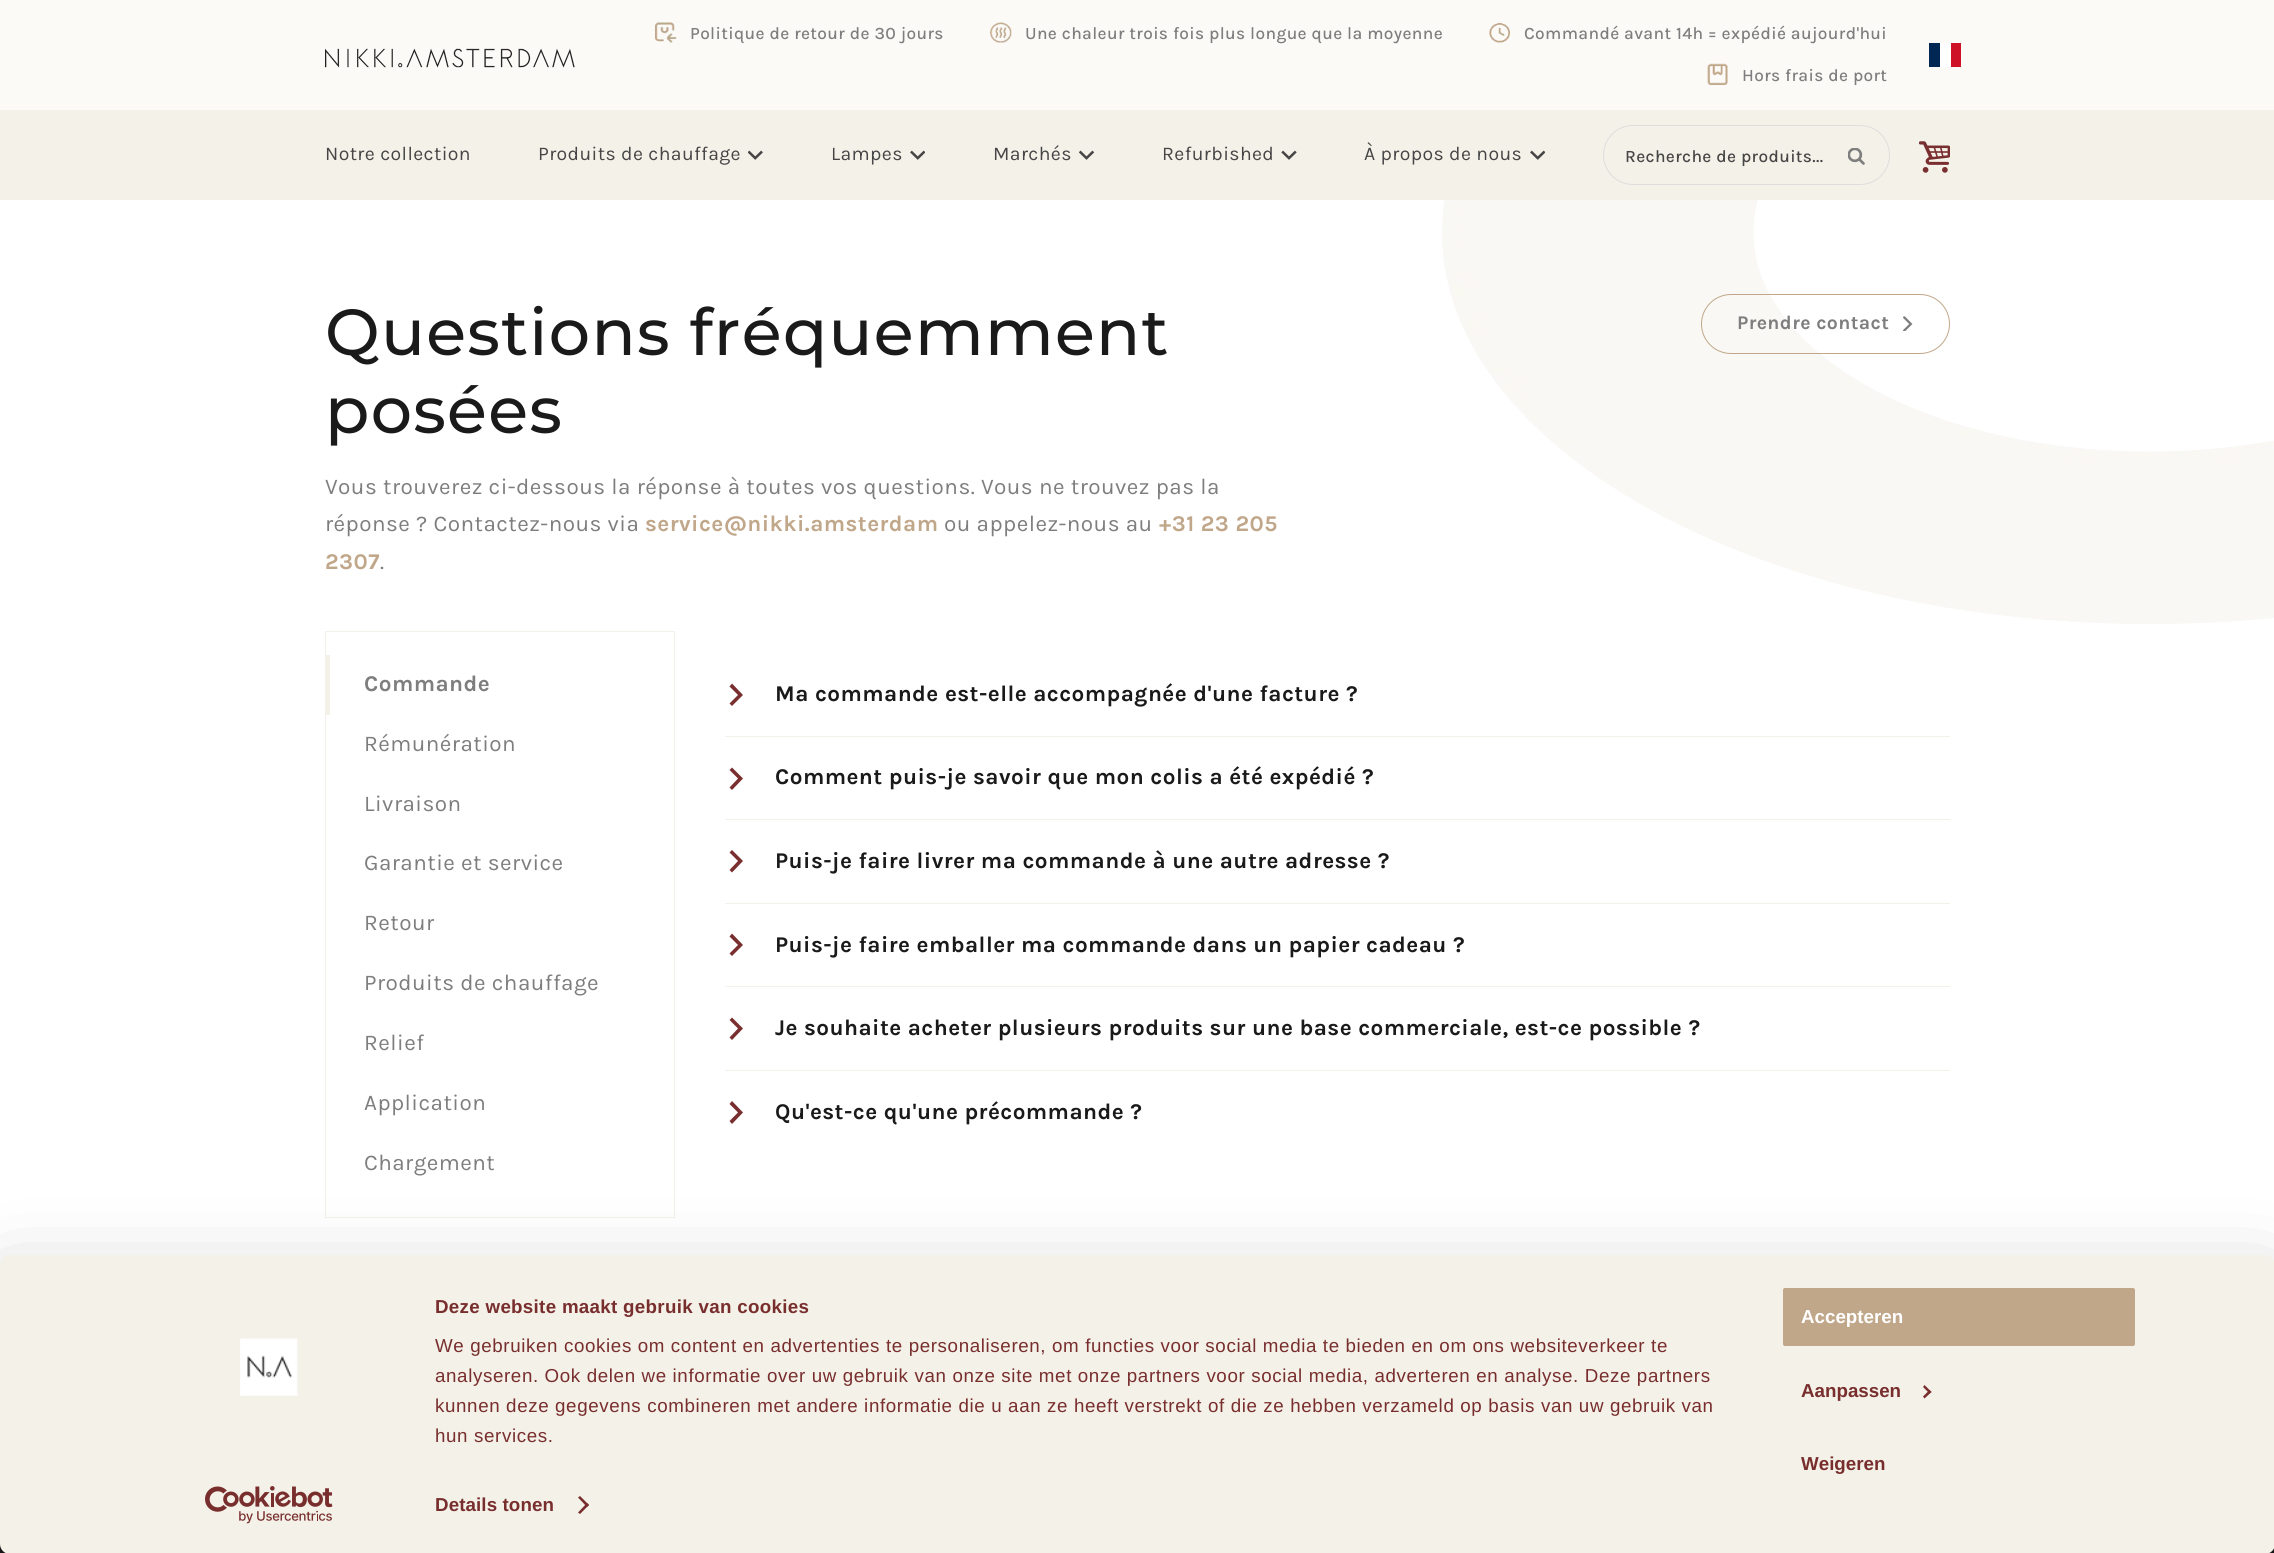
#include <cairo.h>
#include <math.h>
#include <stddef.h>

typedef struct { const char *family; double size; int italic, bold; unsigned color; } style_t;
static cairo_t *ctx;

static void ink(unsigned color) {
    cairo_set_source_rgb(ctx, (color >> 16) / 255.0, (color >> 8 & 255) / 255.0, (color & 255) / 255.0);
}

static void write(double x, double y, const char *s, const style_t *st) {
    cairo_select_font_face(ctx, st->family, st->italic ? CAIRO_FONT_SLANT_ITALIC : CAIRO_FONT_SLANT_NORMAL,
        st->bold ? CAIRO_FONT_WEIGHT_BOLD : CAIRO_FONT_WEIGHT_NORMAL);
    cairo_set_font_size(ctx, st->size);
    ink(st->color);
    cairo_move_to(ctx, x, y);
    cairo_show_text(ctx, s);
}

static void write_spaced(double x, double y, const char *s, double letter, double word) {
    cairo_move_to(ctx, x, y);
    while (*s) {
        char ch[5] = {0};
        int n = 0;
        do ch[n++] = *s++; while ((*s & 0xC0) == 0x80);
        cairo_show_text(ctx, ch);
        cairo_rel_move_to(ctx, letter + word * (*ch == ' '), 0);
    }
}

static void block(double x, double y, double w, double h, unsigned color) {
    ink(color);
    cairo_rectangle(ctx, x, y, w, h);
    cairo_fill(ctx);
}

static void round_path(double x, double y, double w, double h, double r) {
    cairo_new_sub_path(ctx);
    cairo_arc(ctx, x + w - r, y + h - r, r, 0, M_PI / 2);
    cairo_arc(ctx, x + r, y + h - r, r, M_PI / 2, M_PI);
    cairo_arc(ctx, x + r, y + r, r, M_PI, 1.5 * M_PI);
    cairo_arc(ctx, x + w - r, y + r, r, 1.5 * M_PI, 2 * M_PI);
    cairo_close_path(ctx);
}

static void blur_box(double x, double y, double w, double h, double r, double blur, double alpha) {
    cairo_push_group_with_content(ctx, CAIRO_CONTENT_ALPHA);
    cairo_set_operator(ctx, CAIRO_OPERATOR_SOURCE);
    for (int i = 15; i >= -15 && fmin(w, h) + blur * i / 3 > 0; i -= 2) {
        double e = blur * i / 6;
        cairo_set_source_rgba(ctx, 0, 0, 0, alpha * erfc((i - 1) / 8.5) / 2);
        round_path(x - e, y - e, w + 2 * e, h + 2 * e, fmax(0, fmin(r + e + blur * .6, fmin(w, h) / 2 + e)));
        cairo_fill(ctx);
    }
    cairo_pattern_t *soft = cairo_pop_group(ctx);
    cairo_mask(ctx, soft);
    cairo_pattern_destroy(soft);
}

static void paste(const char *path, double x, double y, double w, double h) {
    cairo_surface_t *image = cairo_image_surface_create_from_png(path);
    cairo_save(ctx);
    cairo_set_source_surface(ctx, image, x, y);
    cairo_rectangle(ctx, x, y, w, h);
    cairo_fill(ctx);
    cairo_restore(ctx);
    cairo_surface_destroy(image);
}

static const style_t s1 = {"Liberation Sans", 18.75, 0, 1, 0xffffff};
static const style_t s2 = {"Liberation Sans", 18.75, 0, 1, 0x792e2e};

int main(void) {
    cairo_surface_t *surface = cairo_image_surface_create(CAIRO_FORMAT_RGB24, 2274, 1553);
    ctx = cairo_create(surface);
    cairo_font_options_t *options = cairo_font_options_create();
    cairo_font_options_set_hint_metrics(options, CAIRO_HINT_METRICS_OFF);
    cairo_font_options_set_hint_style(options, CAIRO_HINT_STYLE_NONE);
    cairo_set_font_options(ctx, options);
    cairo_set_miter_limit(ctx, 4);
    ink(0xffffff);
    cairo_paint(ctx);
    block(0, 0, 2274, 110, 0xfbfaf7);
    paste("pic1.png", 325, 48, 250, 20);
    paste("pic2.png", 655, 22, 22, 21);
    cairo_select_font_face(ctx, "Karla Medium", CAIRO_FONT_SLANT_NORMAL, CAIRO_FONT_WEIGHT_NORMAL);
    cairo_set_font_size(ctx, 17.3);
    ink(0x7e7e7e);
    write_spaced(690, 39, "Politique de retour de 30 jours", 0.35, 0);
    paste("pic3.png", 990, 22, 22, 21);
    write_spaced(1025, 39, "Une chaleur trois fois plus longue que la moyenne", 0.35, 0);
    paste("pic4.png", 1489, 23, 21, 20);
    write_spaced(1524, 39, "Commandé avant 14h = expédié aujourd'hui", 0.35, 0);
    paste("pic5.png", 1707, 63, 21, 22);
    write_spaced(1742, 81, "Hors frais de port", 0.35, 0);
    block(1940, 43, 11, 24, 0xffffff);
    block(1929, 43, 11, 24, 0x002654);
    block(1951, 43, 10, 24, 0xce1126);
    block(0, 110, 2274, 90, 0xf4f1e8);
    cairo_select_font_face(ctx, "Karla", CAIRO_FONT_SLANT_NORMAL, CAIRO_FONT_WEIGHT_NORMAL);
    cairo_set_font_size(ctx, 19.4);
    ink(0x464646);
    write_spaced(325, 160, "Notre collection", 0.4, 0);
    write_spaced(538, 160, "Produits de chauffage", 0.4, 0);
    paste("pic6.png", 748, 150, 15, 10);
    write_spaced(831, 160, "Lampes", 0.4, 0);
    paste("pic7.png", 910, 150, 15, 10);
    write_spaced(993, 160, "Marchés", 0.4, 0);
    paste("pic8.png", 1079, 150, 16, 10);
    write_spaced(1162, 160, "Refurbished", 0.4, 0);
    paste("pic9.png", 1281, 150, 16, 10);
    write_spaced(1364, 160, "À propos de nous", 0.4, 0);
    paste("pic7.png", 1530, 150, 15, 10);
    round_path(1603.5, 125.5, 286, 59, 29.5);
    ink(0xdddddd);
    cairo_set_line_width(ctx, 1);
    cairo_stroke(ctx);
    cairo_select_font_face(ctx, "Karla Medium", CAIRO_FONT_SLANT_NORMAL, CAIRO_FONT_WEIGHT_NORMAL);
    cairo_set_font_size(ctx, 17.3);
    ink(0x464646);
    write_spaced(1625, 162, "Recherche de produits...", 0.35, 0);
    paste("pic10.png", 1848, 148, 17, 17);
    paste("pic11.png", 1919, 141, 31, 32);
    paste("pic12.png", 1442, 200, 832, 424);
    cairo_select_font_face(ctx, "Montserrat Medium", CAIRO_FONT_SLANT_NORMAL, CAIRO_FONT_WEIGHT_NORMAL);
    cairo_set_font_size(ctx, 65);
    ink(0x1a1a1a);
    write_spaced(325, 355, "Questions fréquemment", 1.3, 0);
    write_spaced(325, 433, "posées", 1.3, 0);
    cairo_select_font_face(ctx, "Karla", CAIRO_FONT_SLANT_NORMAL, CAIRO_FONT_WEIGHT_NORMAL);
    cairo_set_font_size(ctx, 22.5);
    ink(0x7e7e7e);
    write_spaced(325, 494, "Vous trouverez ci-dessous la réponse à toutes vos questions. Vous ne trouvez pas la", 0.45, 0);
    write_spaced(325, 531, "réponse ? Contactez-nous via", 0.45, 0);
    cairo_select_font_face(ctx, "Karla", CAIRO_FONT_SLANT_NORMAL, CAIRO_FONT_WEIGHT_BOLD);
    ink(0xc1a78a);
    write_spaced(645, 531, "service@nikki.amsterdam", 0.45, 0);
    cairo_select_font_face(ctx, "Karla", CAIRO_FONT_SLANT_NORMAL, CAIRO_FONT_WEIGHT_NORMAL);
    ink(0x7e7e7e);
    write_spaced(944, 531, "ou appelez-nous au", 0.45, 0);
    cairo_select_font_face(ctx, "Karla", CAIRO_FONT_SLANT_NORMAL, CAIRO_FONT_WEIGHT_BOLD);
    ink(0xc1a78a);
    write_spaced(1159, 531, "+31 23 205", 0.45, 0);
    write_spaced(325, 569, "2307", 0.45, 0);
    cairo_select_font_face(ctx, "Karla", CAIRO_FONT_SLANT_NORMAL, CAIRO_FONT_WEIGHT_NORMAL);
    ink(0x7e7e7e);
    write_spaced(380, 569, ".", 0.45, 0);
    round_path(1701.5, 294.5, 248, 59, 29.5);
    ink(0xc1a78a);
    cairo_stroke(ctx);
    cairo_select_font_face(ctx, "Karla", CAIRO_FONT_SLANT_NORMAL, CAIRO_FONT_WEIGHT_BOLD);
    cairo_set_font_size(ctx, 19.4);
    ink(0x7e7e7e);
    write_spaced(1737, 329, "Prendre contact", 0.4, 0);
    paste("pic13.png", 1903, 316, 10, 15);
    cairo_rectangle(ctx, 325.5, 631.5, 349, 586);
    ink(0xf4f1e8);
    cairo_stroke(ctx);
    block(326, 655, 4, 60, 0xf4f1e8);
    cairo_set_font_size(ctx, 22.5);
    ink(0x7e7e7e);
    write_spaced(364, 691, "Commande", 0.45, 0);
    cairo_select_font_face(ctx, "Karla", CAIRO_FONT_SLANT_NORMAL, CAIRO_FONT_WEIGHT_NORMAL);
    write_spaced(364, 751, "Rémunération", 0.45, 0);
    write_spaced(364, 811, "Livraison", 0.45, 0);
    write_spaced(364, 870, "Garantie et service", 0.45, 0);
    write_spaced(364, 930, "Retour", 0.45, 0);
    write_spaced(364, 990, "Produits de chauffage", 0.45, 0);
    write_spaced(364, 1050, "Relief", 0.45, 0);
    write_spaced(364, 1110, "Application", 0.45, 0);
    write_spaced(364, 1170, "Chargement", 0.45, 0);
    ink(0x792e2f);
    cairo_new_path(ctx);
    cairo_move_to(ctx, 729.5, 686.5);
    cairo_line_to(ctx, 738, 695);
    cairo_line_to(ctx, 729.5, 703.5);
    cairo_line_to(ctx, 732, 706);
    cairo_line_to(ctx, 743, 695);
    cairo_line_to(ctx, 732, 683.5);
    cairo_close_path(ctx);
    cairo_fill(ctx);
    cairo_select_font_face(ctx, "Karla", CAIRO_FONT_SLANT_NORMAL, CAIRO_FONT_WEIGHT_BOLD);
    ink(0x1a1a1a);
    write_spaced(775, 701, "Ma commande est-elle accompagnée d'une facture ?", 0.45, 0);
    block(725, 736, 1225, 1, 0xf4f1e8);
    ink(0x792e2f);
    cairo_new_path(ctx);
    cairo_move_to(ctx, 729.5, 770);
    cairo_line_to(ctx, 738, 778.5);
    cairo_line_to(ctx, 729.5, 787.5);
    cairo_line_to(ctx, 732, 790);
    cairo_line_to(ctx, 743, 778.5);
    cairo_line_to(ctx, 732, 767.5);
    cairo_close_path(ctx);
    cairo_fill(ctx);
    ink(0x1a1a1a);
    write_spaced(775, 784, "Comment puis-je savoir que mon colis a été expédié ?", 0.45, 0);
    block(725, 819, 1225, 1, 0xf4f1e8);
    ink(0x792e2f);
    cairo_new_path(ctx);
    cairo_move_to(ctx, 729.5, 852.5);
    cairo_line_to(ctx, 738, 861);
    cairo_line_to(ctx, 729.5, 870);
    cairo_line_to(ctx, 732, 872.5);
    cairo_line_to(ctx, 743, 861);
    cairo_line_to(ctx, 732, 850);
    cairo_close_path(ctx);
    cairo_fill(ctx);
    ink(0x1a1a1a);
    write_spaced(775, 868, "Puis-je faire livrer ma commande à une autre adresse ?", 0.45, 0);
    block(725, 903, 1225, 1, 0xf4f1e8);
    ink(0x792e2f);
    cairo_new_path(ctx);
    cairo_move_to(ctx, 729.5, 936.5);
    cairo_line_to(ctx, 738, 945);
    cairo_line_to(ctx, 729.5, 953.5);
    cairo_line_to(ctx, 732, 956);
    cairo_line_to(ctx, 743, 945);
    cairo_line_to(ctx, 732, 933.5);
    cairo_close_path(ctx);
    cairo_fill(ctx);
    ink(0x1a1a1a);
    write_spaced(775, 952, "Puis-je faire emballer ma commande dans un papier cadeau ?", 0.45, 0);
    block(725, 986, 1225, 1, 0xf4f1e8);
    ink(0x792e2f);
    cairo_new_path(ctx);
    cairo_move_to(ctx, 729.5, 1020);
    cairo_line_to(ctx, 738, 1028.5);
    cairo_line_to(ctx, 729.5, 1037.5);
    cairo_line_to(ctx, 732, 1040);
    cairo_line_to(ctx, 743, 1028.5);
    cairo_line_to(ctx, 732, 1017.5);
    cairo_close_path(ctx);
    cairo_fill(ctx);
    ink(0x1a1a1a);
    write_spaced(775, 1035, "Je souhaite acheter plusieurs produits sur une base commerciale, est-ce possible ?", 0.45, 0);
    block(725, 1070, 1225, 1, 0xf4f1e8);
    ink(0x792e2f);
    cairo_new_path(ctx);
    cairo_move_to(ctx, 729.5, 1104);
    cairo_line_to(ctx, 738, 1112.5);
    cairo_line_to(ctx, 729.5, 1121);
    cairo_line_to(ctx, 732, 1124);
    cairo_line_to(ctx, 743, 1112.5);
    cairo_line_to(ctx, 732, 1101);
    cairo_close_path(ctx);
    cairo_fill(ctx);
    ink(0x1a1a1a);
    write_spaced(775, 1119, "Qu'est-ce qu'une précommande ?", 0.45, 0);
    block(0, 1544, 2274, 9, 0x1a1a1a);
    ink(0x000000);
    blur_box(0, 1293, 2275, 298, 10, 44, 0.3);
    ink(0xf3f1e8);
    round_path(0, 1255, 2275, 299, 10);
    cairo_fill(ctx);
    paste("pic14.png", 240, 1338, 58, 58);
    paste("pic15.png", 205, 1486, 128, 38);
    cairo_select_font_face(ctx, "Liberation Sans", CAIRO_FONT_SLANT_NORMAL, CAIRO_FONT_WEIGHT_BOLD);
    cairo_set_font_size(ctx, 18.75);
    ink(0x792e2e);
    write_spaced(435, 1313, "Deze website maakt gebruik van cookies", 0.3, 0);
    cairo_select_font_face(ctx, "Liberation Sans", CAIRO_FONT_SLANT_NORMAL, CAIRO_FONT_WEIGHT_NORMAL);
    write_spaced(435, 1352, "We gebruiken cookies om content en advertenties te personaliseren, om functies voor social media te bieden en om ons websiteverkeer te", 0.62, 0);
    write_spaced(435, 1382, "analyseren. Ook delen we informatie over uw gebruik van onze site met onze partners voor social media, adverteren en analyse. Deze partners", 0.62, 0);
    write_spaced(435, 1412, "kunnen deze gegevens combineren met andere informatie die u aan ze heeft verstrekt of die ze hebben verzameld op basis van uw gebruik van", 0.62, 0);
    write_spaced(435, 1442, "hun services.", 0.62, 0);
    cairo_select_font_face(ctx, "Liberation Sans", CAIRO_FONT_SLANT_NORMAL, CAIRO_FONT_WEIGHT_BOLD);
    write_spaced(435, 1511, "Details tonen", 0.1, 0);
    cairo_new_path(ctx);
    cairo_move_to(ctx, 580, 1496);
    cairo_line_to(ctx, 589, 1505);
    cairo_line_to(ctx, 587, 1507);
    cairo_line_to(ctx, 578, 1497.5);
    cairo_close_path(ctx);
    cairo_fill(ctx);
    cairo_new_path(ctx);
    cairo_move_to(ctx, 587, 1503);
    cairo_line_to(ctx, 589, 1505);
    cairo_line_to(ctx, 580, 1514);
    cairo_line_to(ctx, 578, 1512.5);
    cairo_close_path(ctx);
    cairo_fill(ctx);
    ink(0xc1a78a);
    round_path(1781.5, 1286.5, 355, 61, 3.5);
    cairo_fill_preserve(ctx);
    ink(0xf3f1e8);
    cairo_set_line_width(ctx, 3);
    cairo_stroke(ctx);
    write(1801, 1323, "Accepteren", &s1);
    write(1801, 1397, "Aanpassen", &s2);
    cairo_new_path(ctx);
    cairo_move_to(ctx, 1924.5, 1385);
    cairo_line_to(ctx, 1931.5, 1392);
    cairo_line_to(ctx, 1929.5, 1393.5);
    cairo_line_to(ctx, 1923, 1387);
    cairo_close_path(ctx);
    cairo_fill(ctx);
    cairo_new_path(ctx);
    cairo_move_to(ctx, 1929.5, 1390);
    cairo_line_to(ctx, 1931.5, 1392);
    cairo_line_to(ctx, 1924.5, 1398.5);
    cairo_line_to(ctx, 1923, 1396.5);
    cairo_close_path(ctx);
    cairo_fill(ctx);
    write(1801, 1470, "Weigeren", &s2);
    cairo_surface_write_to_png(surface, "screenshot.png");
    cairo_font_options_destroy(options);
    cairo_destroy(ctx);
    cairo_surface_destroy(surface);
    return 0;
}
